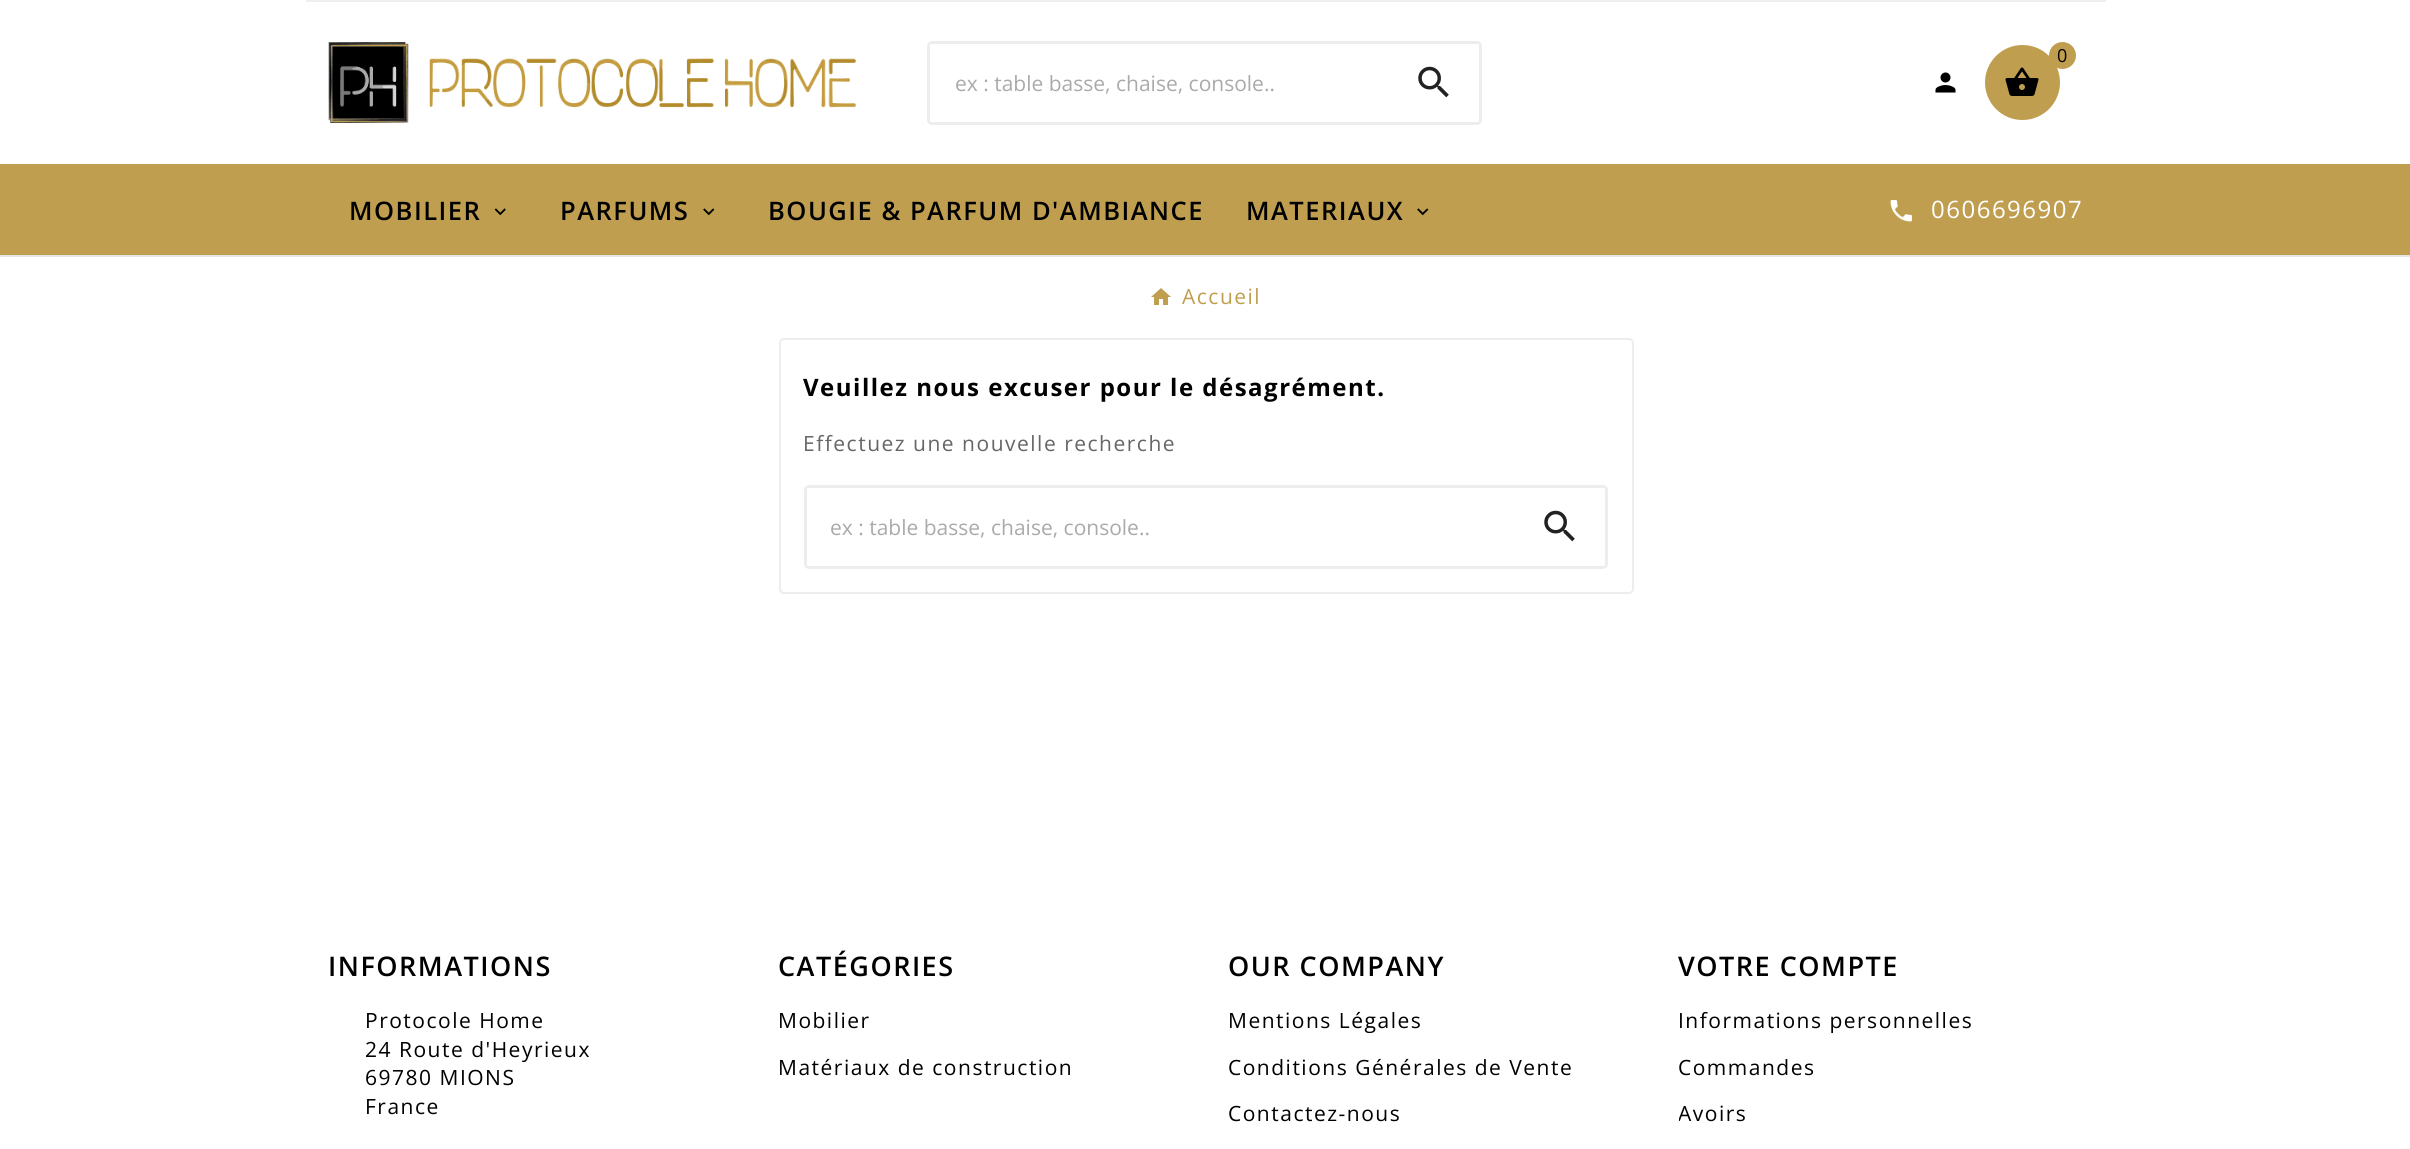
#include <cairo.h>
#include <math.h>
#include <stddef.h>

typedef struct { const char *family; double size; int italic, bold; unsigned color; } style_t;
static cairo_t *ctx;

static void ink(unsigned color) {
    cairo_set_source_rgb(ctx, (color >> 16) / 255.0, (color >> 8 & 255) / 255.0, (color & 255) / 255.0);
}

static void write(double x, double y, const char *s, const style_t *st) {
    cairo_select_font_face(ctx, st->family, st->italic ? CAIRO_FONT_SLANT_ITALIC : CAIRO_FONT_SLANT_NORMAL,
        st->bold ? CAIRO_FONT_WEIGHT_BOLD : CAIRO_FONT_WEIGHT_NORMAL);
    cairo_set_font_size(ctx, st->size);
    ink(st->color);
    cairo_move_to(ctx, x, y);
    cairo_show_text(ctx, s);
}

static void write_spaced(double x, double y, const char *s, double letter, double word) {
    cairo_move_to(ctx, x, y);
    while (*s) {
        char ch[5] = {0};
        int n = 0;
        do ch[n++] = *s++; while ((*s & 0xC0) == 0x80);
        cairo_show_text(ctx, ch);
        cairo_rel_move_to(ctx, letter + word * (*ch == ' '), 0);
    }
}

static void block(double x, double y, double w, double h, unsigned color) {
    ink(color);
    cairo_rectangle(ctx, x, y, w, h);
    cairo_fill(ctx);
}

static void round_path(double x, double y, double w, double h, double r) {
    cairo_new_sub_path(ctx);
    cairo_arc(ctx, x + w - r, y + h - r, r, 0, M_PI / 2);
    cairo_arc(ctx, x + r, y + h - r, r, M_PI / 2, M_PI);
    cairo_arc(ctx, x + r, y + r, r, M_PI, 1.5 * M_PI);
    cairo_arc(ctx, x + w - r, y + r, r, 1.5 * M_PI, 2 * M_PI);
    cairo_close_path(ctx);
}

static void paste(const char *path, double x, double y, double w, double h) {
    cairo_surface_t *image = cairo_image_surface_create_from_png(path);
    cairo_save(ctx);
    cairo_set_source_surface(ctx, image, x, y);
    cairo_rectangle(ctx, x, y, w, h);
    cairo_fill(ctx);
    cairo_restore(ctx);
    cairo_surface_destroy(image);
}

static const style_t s1 = {"Open Sans", 21, 0, 0, 0xaaaaaa};

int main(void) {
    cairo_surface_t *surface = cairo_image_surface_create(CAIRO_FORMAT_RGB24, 2410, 1149);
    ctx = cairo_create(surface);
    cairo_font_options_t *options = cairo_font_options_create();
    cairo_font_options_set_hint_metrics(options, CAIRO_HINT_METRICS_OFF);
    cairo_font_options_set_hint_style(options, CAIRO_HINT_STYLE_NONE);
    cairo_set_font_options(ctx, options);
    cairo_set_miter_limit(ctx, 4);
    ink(0xffffff);
    cairo_paint(ctx);
    block(0, 255, 2410, 2, 0xe5e5e5);
    block(306, 0, 1800, 2, 0xeeeeee);
    paste("pic1.png", 328, 42, 528, 81);
    ink(0xbf9e50);
    cairo_arc(ctx, 2022.5, 82.5, 37.5, 0, 2 * M_PI);
    cairo_fill(ctx);
    paste("pic2.png", 2005, 67, 34, 29);
    cairo_arc(ctx, 2062.5, 55.5, 13.5, 0, 2 * M_PI);
    cairo_fill(ctx);
    cairo_select_font_face(ctx, "Open Sans", CAIRO_FONT_SLANT_NORMAL, CAIRO_FONT_WEIGHT_NORMAL);
    cairo_set_font_size(ctx, 18);
    ink(0x000000);
    write_spaced(2057, 62, "0", 1.5, 0);
    paste("pic3.png", 1935, 72, 21, 21);
    round_path(928.5, 42.5, 552, 81, 3.5);
    ink(0xededed);
    cairo_set_line_width(ctx, 3);
    cairo_stroke(ctx);
    ink(0xffffff);
    cairo_new_path(ctx);
    cairo_move_to(ctx, 931.5, 44);
    cairo_line_to(ctx, 1389, 44);
    cairo_line_to(ctx, 1389, 122);
    cairo_line_to(ctx, 931.5, 122);
    cairo_curve_to(ctx, 930.5, 122, 930, 121.5, 930, 120.5);
    cairo_line_to(ctx, 930, 45.5);
    cairo_curve_to(ctx, 930, 44.5, 930.5, 44, 931.5, 44);
    cairo_close_path(ctx);
    cairo_fill(ctx);
    write(955, 91, "ex : table basse, chaise, console..", &s1);
    ink(0xffffff);
    cairo_new_path(ctx);
    cairo_move_to(ctx, 1389, 44);
    cairo_line_to(ctx, 1477.5, 44);
    cairo_curve_to(ctx, 1478.5, 44, 1479, 44.5, 1479, 45.5);
    cairo_line_to(ctx, 1479, 120.5);
    cairo_curve_to(ctx, 1479, 121.5, 1478.5, 122, 1477.5, 122);
    cairo_line_to(ctx, 1389, 122);
    cairo_close_path(ctx);
    cairo_fill(ctx);
    paste("pic4.png", 1418, 66, 31, 32);
    block(0, 164, 2410, 91, 0xbf9e50);
    cairo_select_font_face(ctx, "Open Sans SemiBold", CAIRO_FONT_SLANT_NORMAL, CAIRO_FONT_WEIGHT_NORMAL);
    cairo_set_font_size(ctx, 25.5);
    ink(0x000000);
    write_spaced(349, 220, "MOBILIER", 1.5, 0);
    paste("pic5.png", 494, 208, 12, 8);
    write_spaced(560, 220, "PARFUMS", 1.5, 0);
    paste("pic6.png", 703, 208, 12, 8);
    write_spaced(768, 220, "BOUGIE & PARFUM D'AMBIANCE", 1.5, 0);
    write_spaced(1246, 220, "MATERIAUX", 1.5, 0);
    paste("pic6.png", 1417, 208, 12, 8);
    paste("pic7.png", 1890, 200, 22, 22);
    cairo_select_font_face(ctx, "Open Sans", CAIRO_FONT_SLANT_NORMAL, CAIRO_FONT_WEIGHT_NORMAL);
    cairo_set_font_size(ctx, 24);
    ink(0xffffff);
    write_spaced(1931, 218, "0606696907", 1.5, 0);
    paste("pic8.png", 1151, 288, 20, 17);
    cairo_set_font_size(ctx, 21);
    ink(0xbf9e50);
    write_spaced(1182, 304, "Accueil", 1.5, 0);
    round_path(780, 339, 853, 254, 4);
    ink(0xededed);
    cairo_set_line_width(ctx, 2);
    cairo_stroke(ctx);
    cairo_select_font_face(ctx, "Open Sans", CAIRO_FONT_SLANT_NORMAL, CAIRO_FONT_WEIGHT_BOLD);
    cairo_set_font_size(ctx, 24);
    ink(0x000000);
    write_spaced(803, 396, "Veuillez nous excuser pour le désagrément.", 1.5, 0);
    cairo_select_font_face(ctx, "Open Sans", CAIRO_FONT_SLANT_NORMAL, CAIRO_FONT_WEIGHT_NORMAL);
    cairo_set_font_size(ctx, 21);
    ink(0x666666);
    write_spaced(803, 451, "Effectuez une nouvelle recherche", 1.5, 0);
    round_path(805.5, 486.5, 801, 81, 3.5);
    ink(0xededed);
    cairo_set_line_width(ctx, 3);
    cairo_stroke(ctx);
    ink(0xffffff);
    cairo_new_path(ctx);
    cairo_move_to(ctx, 808.5, 488);
    cairo_line_to(ctx, 1515, 488);
    cairo_line_to(ctx, 1515, 566);
    cairo_line_to(ctx, 808.5, 566);
    cairo_curve_to(ctx, 807.5, 566, 807, 565.5, 807, 564.5);
    cairo_line_to(ctx, 807, 489.5);
    cairo_curve_to(ctx, 807, 488.5, 807.5, 488, 808.5, 488);
    cairo_close_path(ctx);
    cairo_fill(ctx);
    write(830, 535, "ex : table basse, chaise, console..", &s1);
    ink(0xffffff);
    cairo_new_path(ctx);
    cairo_move_to(ctx, 1515, 488);
    cairo_line_to(ctx, 1603.5, 488);
    cairo_curve_to(ctx, 1604.5, 488, 1605, 488.5, 1605, 489.5);
    cairo_line_to(ctx, 1605, 564.5);
    cairo_curve_to(ctx, 1605, 565.5, 1604.5, 566, 1603.5, 566);
    cairo_line_to(ctx, 1515, 566);
    cairo_close_path(ctx);
    cairo_fill(ctx);
    paste("pic4.png", 1544, 510, 31, 32);
    cairo_select_font_face(ctx, "Open Sans SemiBold", CAIRO_FONT_SLANT_NORMAL, CAIRO_FONT_WEIGHT_NORMAL);
    cairo_set_font_size(ctx, 27);
    ink(0x000000);
    write_spaced(328, 976, "INFORMATIONS", 1.5, 0);
    cairo_select_font_face(ctx, "Open Sans", CAIRO_FONT_SLANT_NORMAL, CAIRO_FONT_WEIGHT_NORMAL);
    cairo_set_font_size(ctx, 21);
    write_spaced(365, 1028, "Protocole Home", 1.5, 0);
    write_spaced(365, 1057, "24 Route d'Heyrieux", 1.5, 0);
    write_spaced(365, 1085, "69780 MIONS", 1.5, 0);
    write_spaced(365, 1114, "France", 1.5, 0);
    cairo_select_font_face(ctx, "Open Sans SemiBold", CAIRO_FONT_SLANT_NORMAL, CAIRO_FONT_WEIGHT_NORMAL);
    cairo_set_font_size(ctx, 27);
    write_spaced(778, 976, "CATÉGORIES", 1.5, 0);
    cairo_select_font_face(ctx, "Open Sans", CAIRO_FONT_SLANT_NORMAL, CAIRO_FONT_WEIGHT_NORMAL);
    cairo_set_font_size(ctx, 21);
    write_spaced(778, 1028, "Mobilier", 1.5, 0);
    write_spaced(778, 1075, "Matériaux de construction", 1.5, 0);
    cairo_select_font_face(ctx, "Open Sans SemiBold", CAIRO_FONT_SLANT_NORMAL, CAIRO_FONT_WEIGHT_NORMAL);
    cairo_set_font_size(ctx, 27);
    write_spaced(1228, 976, "OUR COMPANY", 1.5, 0);
    cairo_select_font_face(ctx, "Open Sans", CAIRO_FONT_SLANT_NORMAL, CAIRO_FONT_WEIGHT_NORMAL);
    cairo_set_font_size(ctx, 21);
    write_spaced(1228, 1028, "Mentions Légales", 1.5, 0);
    write_spaced(1228, 1075, "Conditions Générales de Vente", 1.5, 0);
    write_spaced(1228, 1121, "Contactez-nous", 1.5, 0);
    cairo_select_font_face(ctx, "Open Sans SemiBold", CAIRO_FONT_SLANT_NORMAL, CAIRO_FONT_WEIGHT_NORMAL);
    cairo_set_font_size(ctx, 27);
    write_spaced(1678, 976, "VOTRE COMPTE", 1.5, 0);
    cairo_select_font_face(ctx, "Open Sans", CAIRO_FONT_SLANT_NORMAL, CAIRO_FONT_WEIGHT_NORMAL);
    cairo_set_font_size(ctx, 21);
    write_spaced(1678, 1028, "Informations personnelles", 1.5, 0);
    write_spaced(1678, 1075, "Commandes", 1.5, 0);
    cairo_save(ctx);
    cairo_rectangle(ctx, 1679, 1005, 405, 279);
    cairo_clip(ctx);
    write_spaced(1678, 1121, "Avoirs", 1.5, 0);
    cairo_restore(ctx);
    cairo_surface_write_to_png(surface, "screenshot.png");
    cairo_font_options_destroy(options);
    cairo_destroy(ctx);
    cairo_surface_destroy(surface);
    return 0;
}
